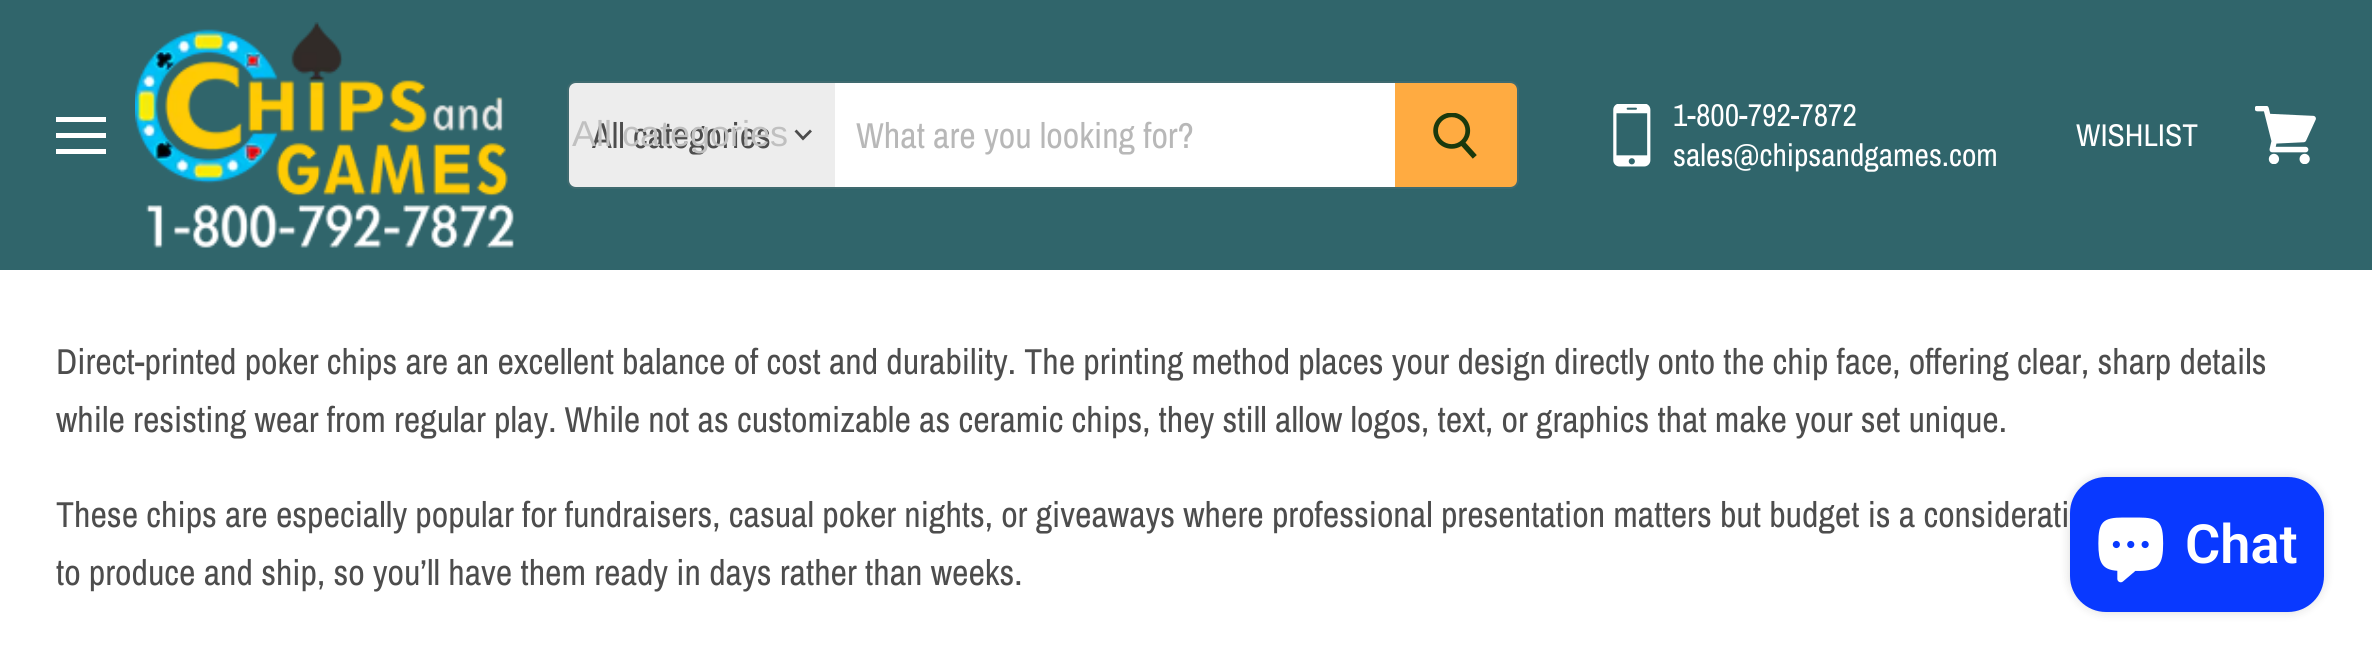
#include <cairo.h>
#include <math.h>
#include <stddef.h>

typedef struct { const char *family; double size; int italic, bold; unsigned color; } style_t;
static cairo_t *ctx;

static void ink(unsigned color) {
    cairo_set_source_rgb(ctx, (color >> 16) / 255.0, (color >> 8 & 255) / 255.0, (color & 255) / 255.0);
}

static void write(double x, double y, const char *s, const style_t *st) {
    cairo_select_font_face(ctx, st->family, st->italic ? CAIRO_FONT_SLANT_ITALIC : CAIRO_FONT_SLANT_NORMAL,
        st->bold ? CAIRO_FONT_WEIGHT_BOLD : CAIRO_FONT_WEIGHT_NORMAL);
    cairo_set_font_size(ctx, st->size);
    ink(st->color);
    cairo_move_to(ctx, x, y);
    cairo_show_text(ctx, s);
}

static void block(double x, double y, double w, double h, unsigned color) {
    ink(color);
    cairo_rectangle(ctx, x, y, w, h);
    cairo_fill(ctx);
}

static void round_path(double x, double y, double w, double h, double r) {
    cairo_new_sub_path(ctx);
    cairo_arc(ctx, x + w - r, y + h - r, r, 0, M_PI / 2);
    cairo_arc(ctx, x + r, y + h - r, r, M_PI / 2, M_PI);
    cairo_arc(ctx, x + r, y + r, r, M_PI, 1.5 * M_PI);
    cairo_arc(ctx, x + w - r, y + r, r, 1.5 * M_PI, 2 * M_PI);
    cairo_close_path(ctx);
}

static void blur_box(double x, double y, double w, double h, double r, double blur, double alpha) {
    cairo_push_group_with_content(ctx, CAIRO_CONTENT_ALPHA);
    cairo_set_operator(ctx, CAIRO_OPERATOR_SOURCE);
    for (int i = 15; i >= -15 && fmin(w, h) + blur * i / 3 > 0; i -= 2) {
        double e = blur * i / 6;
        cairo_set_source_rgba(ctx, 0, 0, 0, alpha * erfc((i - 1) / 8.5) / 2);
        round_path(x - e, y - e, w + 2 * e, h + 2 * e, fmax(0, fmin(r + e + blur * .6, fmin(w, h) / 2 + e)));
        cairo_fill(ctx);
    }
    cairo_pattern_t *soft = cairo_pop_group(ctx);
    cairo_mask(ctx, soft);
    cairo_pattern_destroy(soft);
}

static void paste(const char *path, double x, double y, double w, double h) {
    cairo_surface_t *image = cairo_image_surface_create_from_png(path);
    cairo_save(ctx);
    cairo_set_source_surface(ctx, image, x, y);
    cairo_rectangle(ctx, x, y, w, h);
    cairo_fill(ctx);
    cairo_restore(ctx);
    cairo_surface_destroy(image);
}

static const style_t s1 = {"Archivo Narrow", 36, 0, 0, 0x4d4d4d};
static const style_t s2 = {"Liberation Sans", 36, 0, 0, 0xc0c0c0};
static const style_t s3 = {"Archivo Narrow", 36, 0, 0, 0xb8b8b8};
static const style_t s4 = {"Archivo Narrow", 31.5, 0, 0, 0xffffff};
static const style_t s5 = {"Roboto SemiBold", 54, 0, 0, 0xffffff};

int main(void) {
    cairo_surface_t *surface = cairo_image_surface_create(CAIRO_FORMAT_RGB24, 2372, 659);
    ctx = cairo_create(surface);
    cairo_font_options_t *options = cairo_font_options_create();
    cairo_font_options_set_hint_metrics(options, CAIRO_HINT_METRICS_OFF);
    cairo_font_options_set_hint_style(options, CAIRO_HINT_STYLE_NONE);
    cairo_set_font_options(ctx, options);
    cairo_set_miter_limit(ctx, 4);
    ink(0xffffff);
    cairo_paint(ctx);
    block(0, 0, 2372, 270, 0x30656b);
    block(56, 117, 50, 5, 0xffffff);
    block(56, 133, 50, 5, 0xffffff);
    block(56, 149, 50, 5, 0xffffff);
    paste("pic1.png", 135, 22, 379, 226);
    round_path(568, 82, 950, 106, 8);
    cairo_set_source_rgba(ctx, 0.502, 0.502, 0.502, 0.2);
    cairo_stroke(ctx);
    ink(0xededed);
    cairo_new_path(ctx);
    cairo_move_to(ctx, 576, 83);
    cairo_line_to(ctx, 835, 83);
    cairo_line_to(ctx, 835, 187);
    cairo_line_to(ctx, 576, 187);
    cairo_curve_to(ctx, 572, 187, 569, 184, 569, 180);
    cairo_line_to(ctx, 569, 90);
    cairo_curve_to(ctx, 569, 86, 572, 83, 576, 83);
    cairo_close_path(ctx);
    cairo_fill(ctx);
    write(592, 148, "All categories", &s1);
    write(572, 146, "All categories", &s2);
    cairo_new_path(ctx);
    cairo_move_to(ctx, 803, 138.5);
    cairo_line_to(ctx, 810, 131.5);
    cairo_move_to(ctx, 803, 138.5);
    cairo_line_to(ctx, 796.5, 131.5);
    ink(0x4d4d4d);
    cairo_set_line_width(ctx, 2.8);
    cairo_set_line_cap(ctx, CAIRO_LINE_CAP_SQUARE);
    cairo_stroke(ctx);
    block(835, 83, 560, 104, 0xffffff);
    write(856, 148, "What are you looking for?", &s3);
    ink(0xffab41);
    cairo_new_path(ctx);
    cairo_move_to(ctx, 1396, 84);
    cairo_line_to(ctx, 1510, 84);
    cairo_curve_to(ctx, 1513.5, 84, 1516, 86.5, 1516, 90);
    cairo_line_to(ctx, 1516, 180);
    cairo_curve_to(ctx, 1516, 183.5, 1513.5, 186, 1510, 186);
    cairo_line_to(ctx, 1396, 186);
    cairo_close_path(ctx);
    cairo_fill_preserve(ctx);
    cairo_set_line_width(ctx, 2);
    cairo_set_line_cap(ctx, CAIRO_LINE_CAP_BUTT);
    cairo_stroke(ctx);
    paste("pic2.png", 1433, 113, 44, 46);
    paste("pic3.png", 1613, 104, 38, 63);
    write(1673, 126, "1-800-792-7872", &s4);
    write(1673, 166, "sales@chipsandgames.com", &s4);
    write(2076, 146, "WISHLIST", &s4);
    paste("pic4.png", 2255, 106, 61, 58);
    write(56, 374, "Direct-printed poker chips are an excellent balance of cost and durability. The printing method places your design directly onto the chip face, offering clear, sharp details", &s1);
    write(56, 432, "while resisting wear from regular play. While not as customizable as ceramic chips, they still allow logos, text, or graphics that make your set unique.", &s1);
    write(56, 527, "These chips are especially popular for fundraisers, casual poker nights, or giveaways where professional presentation matters but budget is a considerati", &s1);
    write(56, 585, "to produce and ship, so you’ll have them ready in days rather than weeks.", &s1);
    ink(0x000000);
    blur_box(2070, 477, 254, 135, 36, 5.5, 0.15);
    ink(0x0939ff);
    round_path(2070, 477, 254, 135, 36);
    cairo_fill(ctx);
    paste("pic5.png", 2098, 517, 66, 66);
    write(2185, 563, "Chat", &s5);
    cairo_surface_write_to_png(surface, "screenshot.png");
    cairo_font_options_destroy(options);
    cairo_destroy(ctx);
    cairo_surface_destroy(surface);
    return 0;
}
